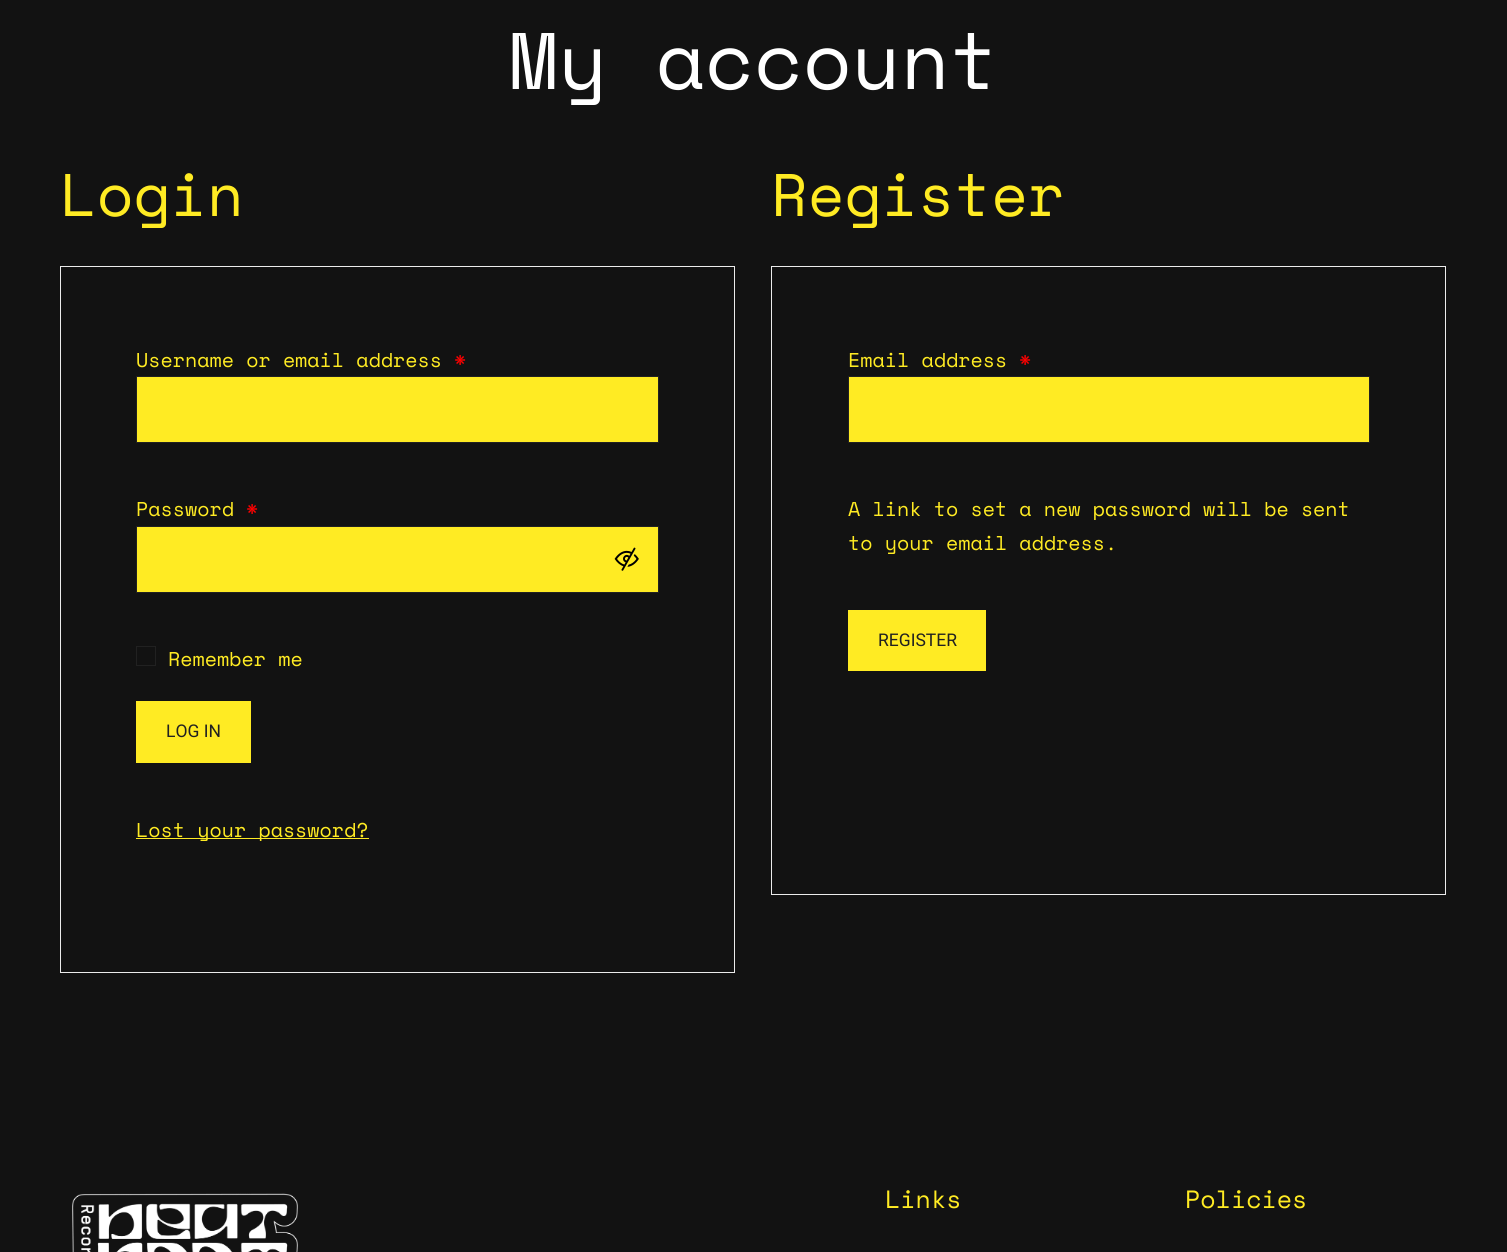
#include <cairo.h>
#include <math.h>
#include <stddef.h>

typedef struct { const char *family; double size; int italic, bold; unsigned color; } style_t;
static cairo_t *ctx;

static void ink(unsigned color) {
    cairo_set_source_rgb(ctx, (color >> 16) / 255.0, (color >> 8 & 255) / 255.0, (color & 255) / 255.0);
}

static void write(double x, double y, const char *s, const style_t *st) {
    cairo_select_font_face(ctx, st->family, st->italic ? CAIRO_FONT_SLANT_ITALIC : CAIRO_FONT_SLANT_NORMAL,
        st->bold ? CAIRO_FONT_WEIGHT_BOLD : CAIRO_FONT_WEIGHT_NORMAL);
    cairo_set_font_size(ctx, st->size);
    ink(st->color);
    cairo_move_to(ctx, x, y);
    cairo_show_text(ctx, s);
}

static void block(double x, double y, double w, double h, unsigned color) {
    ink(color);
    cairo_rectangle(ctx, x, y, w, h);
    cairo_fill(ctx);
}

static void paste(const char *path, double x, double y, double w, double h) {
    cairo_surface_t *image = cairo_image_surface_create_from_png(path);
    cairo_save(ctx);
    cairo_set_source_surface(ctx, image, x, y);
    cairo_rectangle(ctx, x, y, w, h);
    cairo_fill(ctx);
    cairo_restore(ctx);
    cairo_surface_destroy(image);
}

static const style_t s1 = {"Space Mono", 80, 0, 0, 0xffffff};
static const style_t s2 = {"Space Mono", 60, 0, 0, 0xffeb23};
static const style_t s3 = {"Space Mono", 20, 0, 0, 0xffeb23};
static const style_t s4 = {"Space Mono", 20, 0, 0, 0xff0000};
static const style_t s5 = {"Roboto", 17.5, 0, 0, 0x212121};
static const style_t s6 = {"Space Mono", 25, 0, 0, 0xffeb23};

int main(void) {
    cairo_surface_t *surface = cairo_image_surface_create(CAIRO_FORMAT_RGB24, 1507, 1252);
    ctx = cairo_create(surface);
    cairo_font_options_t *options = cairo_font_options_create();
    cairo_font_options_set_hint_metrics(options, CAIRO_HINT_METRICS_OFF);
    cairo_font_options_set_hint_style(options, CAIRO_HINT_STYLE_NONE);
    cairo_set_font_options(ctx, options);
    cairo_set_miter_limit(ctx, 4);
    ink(0x121212);
    cairo_paint(ctx);
    write(509, 89, "My account", &s1);
    write(60, 216, "Login", &s2);
    cairo_rectangle(ctx, 60.5, 266.5, 674, 706);
    ink(0xebebeb);
    cairo_set_line_width(ctx, 1);
    cairo_stroke(ctx);
    write(136, 367, "Username or email address", &s3);
    write(454, 367, "*", &s4);
    ink(0xffeb23);
    cairo_rectangle(ctx, 136.5, 376.5, 522, 66);
    cairo_fill_preserve(ctx);
    ink(0x212121);
    cairo_stroke(ctx);
    write(136, 516, "Password", &s3);
    write(246, 516, "*", &s4);
    ink(0xffeb23);
    cairo_rectangle(ctx, 136.5, 526.5, 522, 66);
    cairo_fill_preserve(ctx);
    ink(0x212121);
    cairo_stroke(ctx);
    paste("pic1.png", 614, 547, 25, 24);
    cairo_rectangle(ctx, 136.5, 646.5, 19, 19);
    cairo_stroke(ctx);
    write(168, 666, "Remember me", &s3);
    block(136, 701, 115, 62, 0xffeb23);
    write(166, 737, "LOG IN", &s5);
    block(136, 838, 233, 1, 0xffeb23);
    write(136, 837, "Lost your password?", &s3);
    write(771, 216, "Register", &s2);
    cairo_rectangle(ctx, 771.5, 266.5, 674, 628);
    ink(0xebebeb);
    cairo_stroke(ctx);
    write(848, 367, "Email address", &s3);
    write(1019, 367, "*", &s4);
    ink(0xffeb23);
    cairo_rectangle(ctx, 848.5, 376.5, 521, 66);
    cairo_fill_preserve(ctx);
    ink(0x212121);
    cairo_stroke(ctx);
    write(848, 516, "A link to set a new password will be sent", &s3);
    write(848, 550, "to your email address.", &s3);
    block(848, 610, 138, 61, 0xffeb23);
    write(878, 646, "REGISTER", &s5);
    paste("pic2.png", 72, 1193, 226, 59);
    write(885, 1208, "Links", &s6);
    write(1185, 1208, "Policies", &s6);
    cairo_surface_write_to_png(surface, "screenshot.png");
    cairo_font_options_destroy(options);
    cairo_destroy(ctx);
    cairo_surface_destroy(surface);
    return 0;
}
